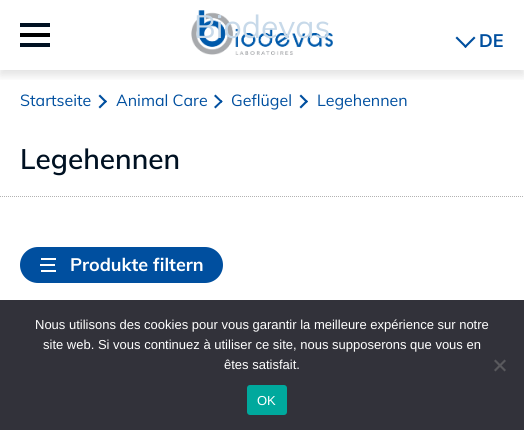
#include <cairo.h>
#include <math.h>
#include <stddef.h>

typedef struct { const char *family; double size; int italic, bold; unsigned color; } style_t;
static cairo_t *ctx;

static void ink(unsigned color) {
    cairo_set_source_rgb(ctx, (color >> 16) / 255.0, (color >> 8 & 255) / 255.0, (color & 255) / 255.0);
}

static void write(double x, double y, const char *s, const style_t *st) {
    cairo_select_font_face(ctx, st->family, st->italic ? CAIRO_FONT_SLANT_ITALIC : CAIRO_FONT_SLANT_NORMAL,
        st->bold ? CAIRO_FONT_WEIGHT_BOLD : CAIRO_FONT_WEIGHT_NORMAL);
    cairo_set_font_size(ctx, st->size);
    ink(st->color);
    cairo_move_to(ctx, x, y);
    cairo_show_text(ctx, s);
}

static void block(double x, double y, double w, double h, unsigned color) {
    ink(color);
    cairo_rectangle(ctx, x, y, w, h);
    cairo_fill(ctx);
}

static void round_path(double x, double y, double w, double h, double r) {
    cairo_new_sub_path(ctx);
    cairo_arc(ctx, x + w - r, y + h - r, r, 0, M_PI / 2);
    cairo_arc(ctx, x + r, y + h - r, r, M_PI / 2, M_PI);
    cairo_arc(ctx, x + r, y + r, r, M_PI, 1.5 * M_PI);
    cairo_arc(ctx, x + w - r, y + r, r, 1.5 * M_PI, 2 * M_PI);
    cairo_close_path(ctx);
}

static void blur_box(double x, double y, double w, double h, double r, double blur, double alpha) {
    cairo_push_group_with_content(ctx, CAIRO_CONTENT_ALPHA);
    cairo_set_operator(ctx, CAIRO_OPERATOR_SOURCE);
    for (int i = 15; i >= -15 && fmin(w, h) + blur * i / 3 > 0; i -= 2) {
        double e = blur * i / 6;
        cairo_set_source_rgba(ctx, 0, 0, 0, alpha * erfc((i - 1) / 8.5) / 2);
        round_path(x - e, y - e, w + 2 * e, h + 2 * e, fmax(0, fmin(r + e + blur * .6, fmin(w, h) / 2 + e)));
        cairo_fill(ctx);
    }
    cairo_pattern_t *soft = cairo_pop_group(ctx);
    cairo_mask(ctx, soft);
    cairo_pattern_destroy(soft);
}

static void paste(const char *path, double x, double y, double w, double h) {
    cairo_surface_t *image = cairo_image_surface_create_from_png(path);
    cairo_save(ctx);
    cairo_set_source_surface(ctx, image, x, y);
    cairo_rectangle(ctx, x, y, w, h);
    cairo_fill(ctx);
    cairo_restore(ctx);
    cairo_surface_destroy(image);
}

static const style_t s1 = {"Muli", 32, 0, 0, 0xc7d9e9};
static const style_t s2 = {"Muli", 18, 0, 1, 0x004f9f};
static const style_t s3 = {"Muli", 16, 0, 0, 0x004f9f};
static const style_t s4 = {"Muli SemiBold", 28, 0, 0, 0x001122};
static const style_t s5 = {"Muli", 18, 0, 1, 0xffffff};
static const style_t s6 = {"Liberation Sans", 13, 0, 0, 0xffffff};

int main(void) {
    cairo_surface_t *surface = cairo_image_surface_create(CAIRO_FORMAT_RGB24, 524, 430);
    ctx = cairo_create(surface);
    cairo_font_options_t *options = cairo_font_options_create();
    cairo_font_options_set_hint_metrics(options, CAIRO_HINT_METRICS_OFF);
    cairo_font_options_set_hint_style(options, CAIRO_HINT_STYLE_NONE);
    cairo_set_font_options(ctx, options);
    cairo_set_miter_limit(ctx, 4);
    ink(0xffffff);
    cairo_paint(ctx);
    cairo_save(ctx);
    cairo_rectangle(ctx, 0, 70, 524, 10);
    cairo_clip(ctx);
    ink(0x000000);
    blur_box(0, 5, 524, 70, 0, 5, 0.12);
    cairo_restore(ctx);
    block(20, 33, 30, 4, 0x000000);
    block(20, 23, 30, 4, 0x001122);
    block(20, 43, 30, 4, 0x001122);
    paste("pic1.png", 191, 10, 142, 45);
    write(194, 38, "Biodevas", &s1);
    ink(0x004f9f);
    cairo_new_path(ctx);
    cairo_move_to(ctx, 474, 36.5);
    cairo_line_to(ctx, 475.5, 38);
    cairo_line_to(ctx, 465.5, 48);
    cairo_line_to(ctx, 464, 46.5);
    cairo_close_path(ctx);
    cairo_fill(ctx);
    cairo_new_path(ctx);
    cairo_move_to(ctx, 457, 36.5);
    cairo_line_to(ctx, 467, 46.5);
    cairo_line_to(ctx, 465.5, 48);
    cairo_line_to(ctx, 455.5, 38);
    cairo_close_path(ctx);
    cairo_fill(ctx);
    write(479, 47, "DE", &s2);
    write(20, 106, "Startseite", &s3);
    cairo_new_path(ctx);
    cairo_move_to(ctx, 100, 94.5);
    cairo_line_to(ctx, 107, 101.5);
    cairo_line_to(ctx, 105.5, 103);
    cairo_line_to(ctx, 98.5, 96);
    cairo_close_path(ctx);
    cairo_fill(ctx);
    cairo_new_path(ctx);
    cairo_move_to(ctx, 105.5, 100);
    cairo_line_to(ctx, 107, 101.5);
    cairo_line_to(ctx, 100, 108.5);
    cairo_line_to(ctx, 98.5, 107);
    cairo_close_path(ctx);
    cairo_fill(ctx);
    write(116, 106, "Animal Care", &s3);
    cairo_new_path(ctx);
    cairo_move_to(ctx, 215.5, 94.5);
    cairo_line_to(ctx, 222.5, 101.5);
    cairo_line_to(ctx, 221.5, 103);
    cairo_line_to(ctx, 214, 96);
    cairo_close_path(ctx);
    cairo_fill(ctx);
    cairo_new_path(ctx);
    cairo_move_to(ctx, 221.5, 100);
    cairo_line_to(ctx, 222.5, 101.5);
    cairo_line_to(ctx, 215.5, 108.5);
    cairo_line_to(ctx, 214, 107);
    cairo_close_path(ctx);
    cairo_fill(ctx);
    write(231, 106, "Geflügel", &s3);
    cairo_new_path(ctx);
    cairo_move_to(ctx, 301, 94.5);
    cairo_line_to(ctx, 308, 101.5);
    cairo_line_to(ctx, 306.5, 103);
    cairo_line_to(ctx, 299.5, 96);
    cairo_close_path(ctx);
    cairo_fill(ctx);
    cairo_new_path(ctx);
    cairo_move_to(ctx, 306.5, 100);
    cairo_line_to(ctx, 308, 101.5);
    cairo_line_to(ctx, 301, 108.5);
    cairo_line_to(ctx, 299.5, 107);
    cairo_close_path(ctx);
    cairo_fill(ctx);
    write(317, 106, "Legehennen", &s3);
    write(20, 169, "Legehennen", &s4);
    cairo_new_path(ctx);
    cairo_move_to(ctx, 0, 196.5);
    cairo_line_to(ctx, 524, 196.5);
    ink(0xb2b2b2);
    cairo_set_line_width(ctx, 1);
    cairo_set_dash(ctx, (double[]){1, 1}, 2, 0);
    cairo_stroke(ctx);
    ink(0x004f9f);
    round_path(20, 247, 203, 36, 18);
    cairo_fill(ctx);
    block(40, 264, 15, 2, 0xffffff);
    block(41, 258, 15, 2, 0xffffff);
    block(41, 270, 15, 2, 0xffffff);
    write(70, 271, "Produkte filtern", &s5);
    block(0, 300, 524, 130, 0x32323a);
    write(35, 329, "Nous utilisons des cookies pour vous garantir la meilleure expérience sur notre", &s6);
    write(43, 349, "site web. Si vous continuez à utiliser ce site, nous supposerons que vous en", &s6);
    write(224, 369, "êtes satisfait.", &s6);
    ink(0x59595d);
    cairo_new_path(ctx);
    cairo_move_to(ctx, 504.5, 359.5);
    cairo_line_to(ctx, 506, 361);
    cairo_line_to(ctx, 495.5, 371.5);
    cairo_line_to(ctx, 494, 370);
    cairo_close_path(ctx);
    cairo_fill(ctx);
    cairo_new_path(ctx);
    cairo_move_to(ctx, 494, 361);
    cairo_line_to(ctx, 495.5, 359.5);
    cairo_line_to(ctx, 506, 370);
    cairo_line_to(ctx, 504.5, 371.5);
    cairo_close_path(ctx);
    cairo_fill(ctx);
    ink(0x00a99d);
    round_path(247, 385, 40, 30, 3);
    cairo_fill(ctx);
    write(257, 405, "OK", &s6);
    cairo_surface_write_to_png(surface, "screenshot.png");
    cairo_font_options_destroy(options);
    cairo_destroy(ctx);
    cairo_surface_destroy(surface);
    return 0;
}
